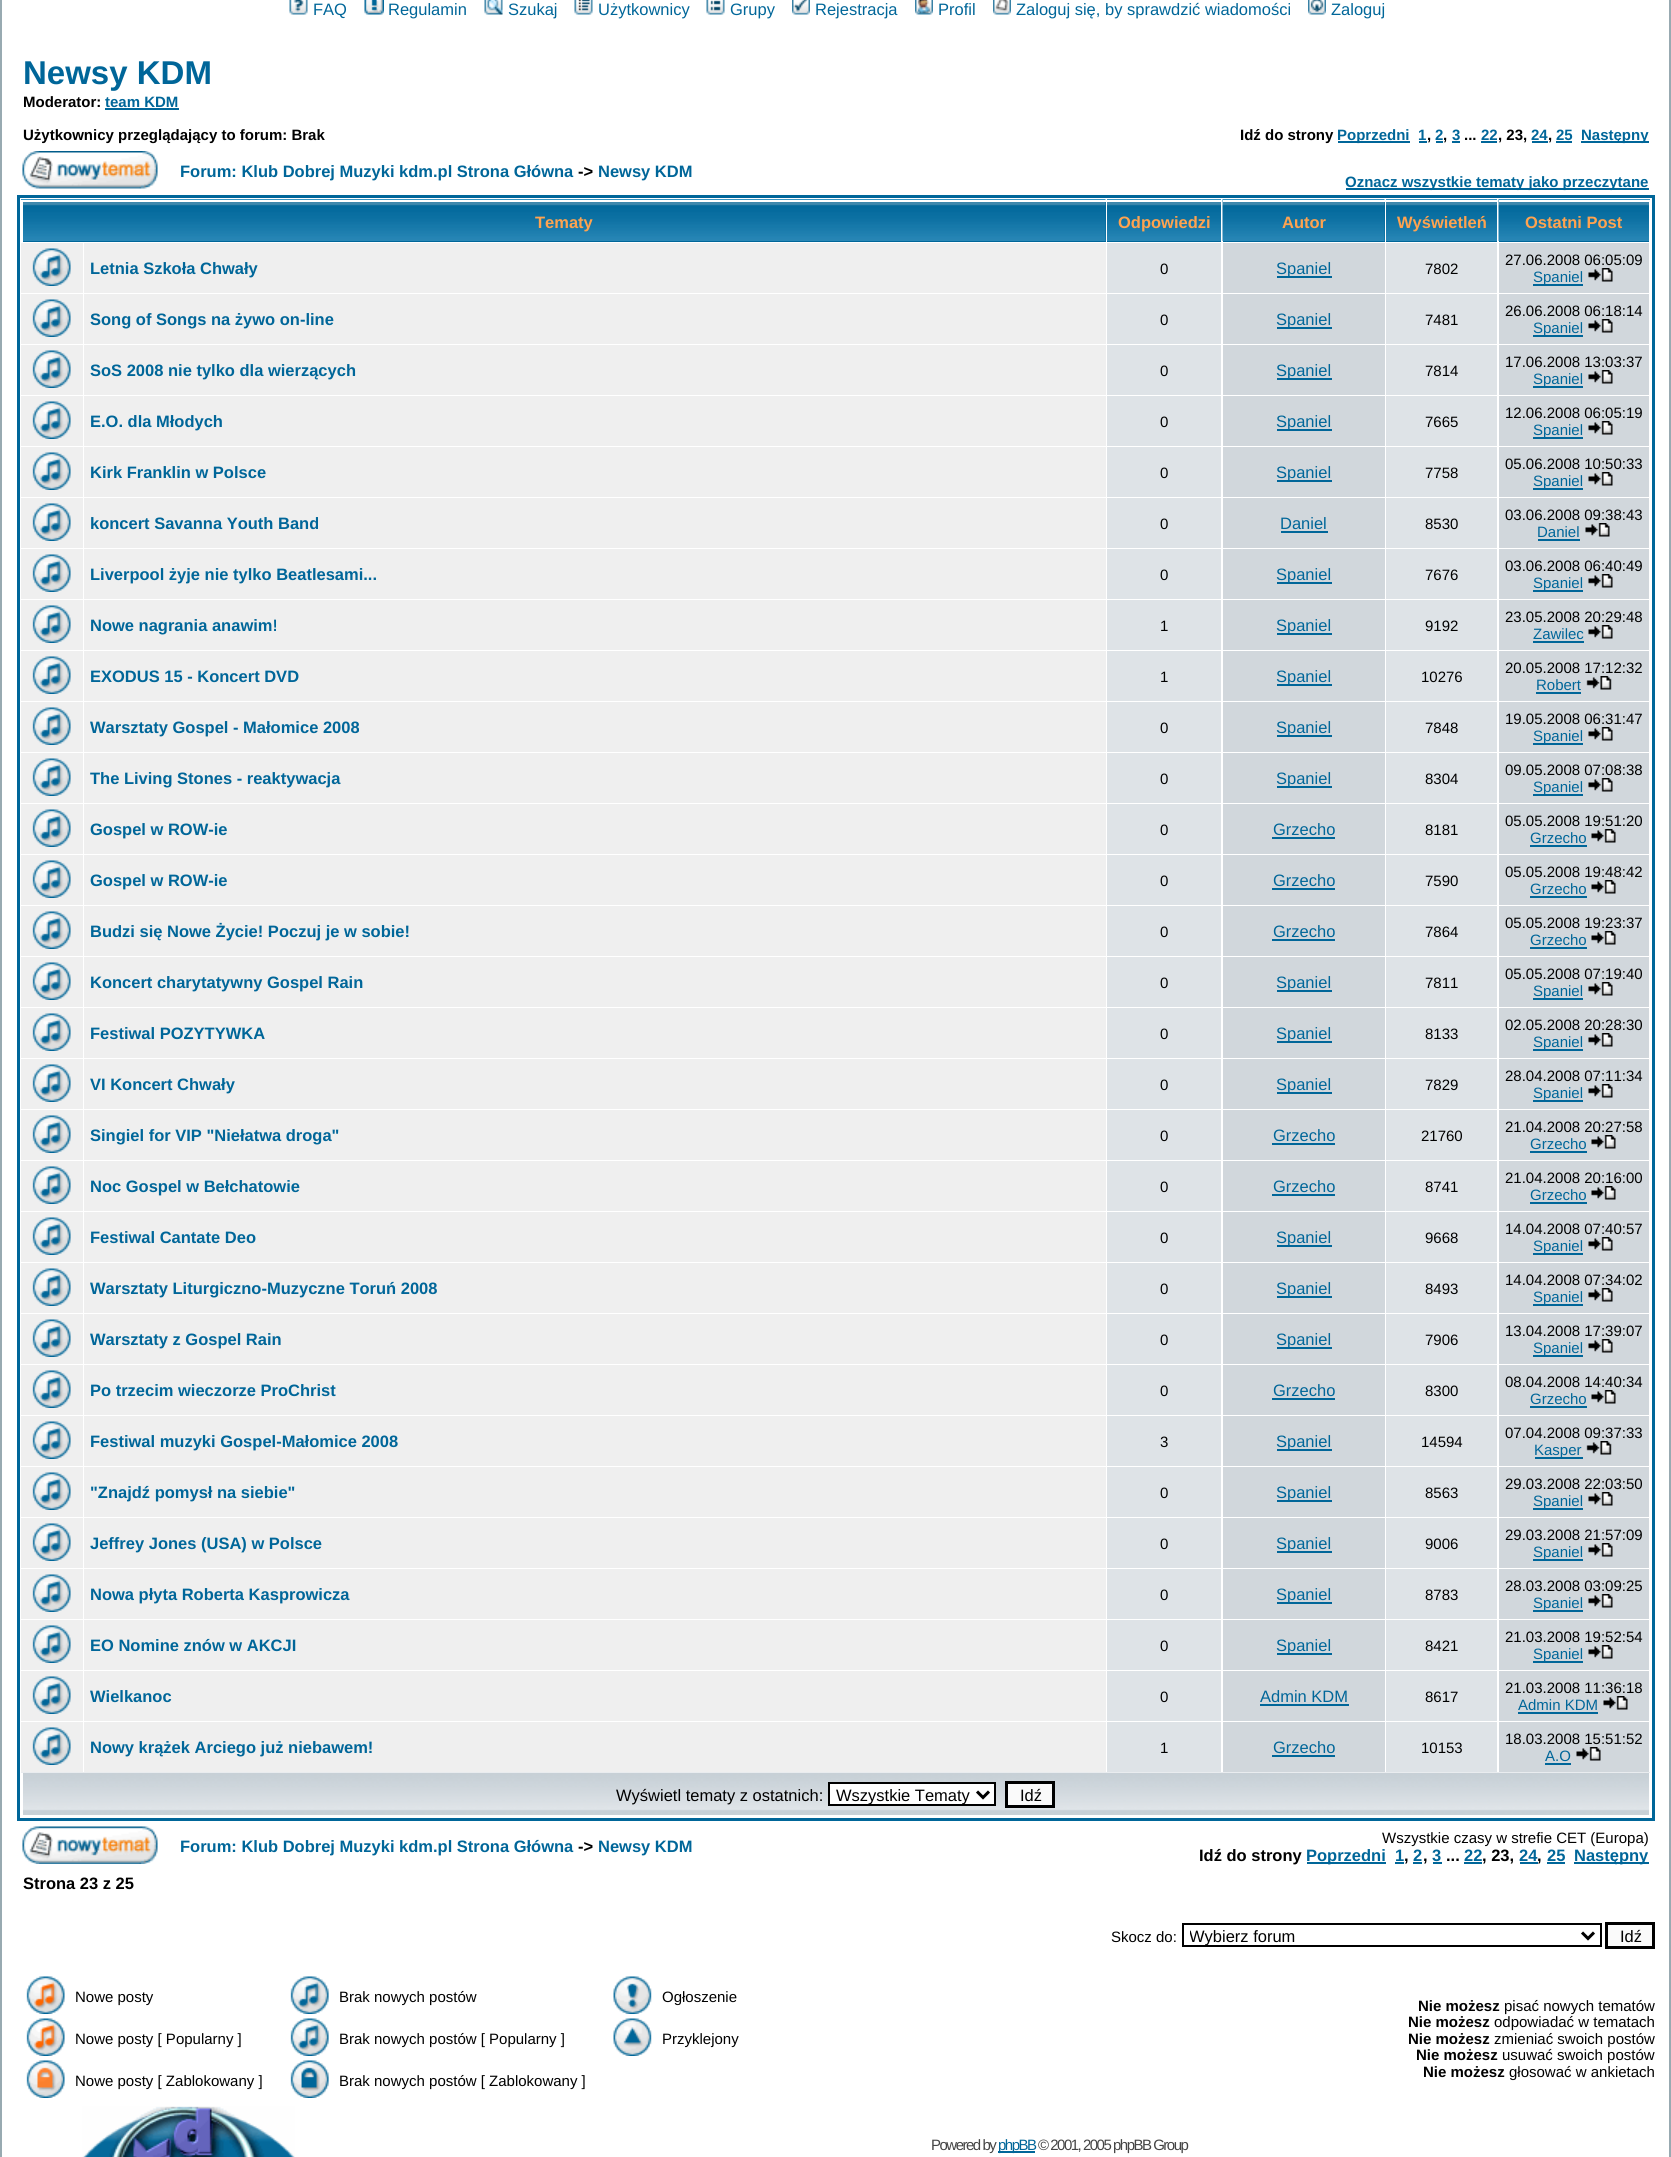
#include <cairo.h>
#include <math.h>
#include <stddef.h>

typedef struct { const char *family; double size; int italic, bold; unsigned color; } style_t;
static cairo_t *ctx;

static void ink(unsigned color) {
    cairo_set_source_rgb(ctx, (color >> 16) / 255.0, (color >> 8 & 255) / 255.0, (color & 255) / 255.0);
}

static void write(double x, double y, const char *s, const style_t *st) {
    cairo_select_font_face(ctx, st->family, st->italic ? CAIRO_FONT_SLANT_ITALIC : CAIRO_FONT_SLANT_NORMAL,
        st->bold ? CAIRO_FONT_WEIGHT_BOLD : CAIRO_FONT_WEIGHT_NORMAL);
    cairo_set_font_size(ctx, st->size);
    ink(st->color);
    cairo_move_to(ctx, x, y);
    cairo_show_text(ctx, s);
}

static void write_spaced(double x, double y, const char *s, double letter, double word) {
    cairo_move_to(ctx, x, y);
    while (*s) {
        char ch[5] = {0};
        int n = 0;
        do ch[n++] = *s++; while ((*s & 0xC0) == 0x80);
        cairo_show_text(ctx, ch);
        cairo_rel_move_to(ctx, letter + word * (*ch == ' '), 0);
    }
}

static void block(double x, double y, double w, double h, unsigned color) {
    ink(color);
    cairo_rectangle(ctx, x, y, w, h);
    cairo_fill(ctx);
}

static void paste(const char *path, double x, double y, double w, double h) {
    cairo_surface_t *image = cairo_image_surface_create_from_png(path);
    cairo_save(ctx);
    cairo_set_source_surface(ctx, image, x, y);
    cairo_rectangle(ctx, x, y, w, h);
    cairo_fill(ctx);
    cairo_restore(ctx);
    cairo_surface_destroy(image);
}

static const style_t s1 = {"Liberation Sans", 16.5, 0, 0, 0x006699};
static const style_t s2 = {"Liberation Sans", 33, 0, 1, 0x006699};
static const style_t s3 = {"Liberation Sans", 15, 0, 1, 0x000000};
static const style_t s4 = {"Liberation Sans", 15, 0, 1, 0x006699};
static const style_t s5 = {"Liberation Sans", 16.5, 0, 1, 0x006699};
static const style_t s6 = {"Liberation Sans", 16.5, 0, 1, 0x000000};
static const style_t s7 = {"Liberation Sans", 16.5, 0, 1, 0xffa34f};
static const style_t s8 = {"Liberation Sans", 15, 0, 0, 0x000000};
static const style_t s9 = {"Liberation Sans", 15, 0, 0, 0x006699};
static const style_t s10 = {"Liberation Sans", 16.5, 0, 0, 0x000000};

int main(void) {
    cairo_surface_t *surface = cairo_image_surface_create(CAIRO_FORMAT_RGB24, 1671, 2157);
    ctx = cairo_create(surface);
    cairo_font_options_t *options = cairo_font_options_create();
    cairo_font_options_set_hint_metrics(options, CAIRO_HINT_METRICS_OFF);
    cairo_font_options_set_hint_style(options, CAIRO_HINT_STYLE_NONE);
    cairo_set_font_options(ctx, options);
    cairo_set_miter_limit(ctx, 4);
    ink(0xffffff);
    cairo_paint(ctx);
    cairo_rectangle(ctx, 1, -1, 1669, 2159);
    ink(0x98aab1);
    cairo_stroke(ctx);
    paste("pic1.png", 289, 0, 19, 15);
    write(313, 15, "FAQ", &s1);
    paste("pic2.png", 364, 0, 20, 15);
    write(388, 15, "Regulamin", &s1);
    paste("pic3.png", 484, 0, 19, 15);
    write(508, 15, "Szukaj", &s1);
    paste("pic4.png", 574, 0, 19, 15);
    write(598, 15, "Użytkownicy", &s1);
    paste("pic5.png", 706, 0, 19, 15);
    write(730, 15, "Grupy", &s1);
    paste("pic6.png", 792, 0, 18, 15);
    write(815, 15, "Rejestracja", &s1);
    paste("pic7.png", 915, 0, 18, 15);
    write(938, 15, "Profil", &s1);
    paste("pic8.png", 993, 0, 18, 15);
    write(1016, 15, "Zaloguj się, by sprawdzić wiadomości", &s1);
    paste("pic9.png", 1308, 0, 18, 15);
    write(1331, 15, "Zaloguj", &s1);
    write(23, 84, "Newsy KDM", &s2);
    write(23, 107, "Moderator:", &s3);
    write(105, 107, "team KDM", &s4);
    block(105, 108, 74, 2, 0x006699);
    write(23, 140, "Użytkownicy przeglądający to forum: Brak", &s3);
    write(1240, 140, "Idź do strony", &s3);
    block(1338, 141, 72, 2, 0x006699);
    write(1337, 140, "Poprzedni", &s4);
    write(1418, 140, "1", &s4);
    write(1427, 140, ",", &s3);
    block(1419, 141, 8, 2, 0x006699);
    write(1435, 140, "2", &s4);
    write(1443, 140, ",", &s3);
    block(1436, 141, 7, 2, 0x006699);
    block(1452, 141, 8, 2, 0x006699);
    write(1452, 140, "3", &s4);
    write(1464, 140, "...", &s3);
    block(1481, 141, 16, 2, 0x006699);
    write(1481, 140, "22", &s4);
    write(1498, 140, ", 23,", &s3);
    write(1531, 140, "24", &s4);
    write(1548, 140, ",", &s3);
    block(1532, 141, 16, 2, 0x006699);
    block(1556, 141, 16, 2, 0x006699);
    write(1556, 140, "25", &s4);
    block(1581, 141, 68, 2, 0x006699);
    write(1581, 140, "Następny", &s4);
    paste("pic10.png", 22, 151, 136, 38);
    write(180, 177, "Forum: Klub Dobrej Muzyki kdm.pl Strona Główna", &s5);
    write(578, 177, "->", &s6);
    write(598, 177, "Newsy KDM", &s5);
    block(1346, 188, 303, 2, 0x006699);
    write(1345, 187, "Oznacz wszystkie tematy jako przeczytane", &s4);
    cairo_rectangle(ctx, 18.5, 196.5, 1635, 1623);
    cairo_set_line_width(ctx, 3);
    cairo_stroke(ctx);
    block(23, 202, 1083, 40, 0x006699);
    paste("pic11.png", 21, 199, 1085, 42);
    block(21, 200, 1085, 2, 0xffffff);
    block(21, 200, 2, 42, 0xffffff);
    write(535, 228, "Tematy", &s7);
    block(1107, 241, 114, 1, 0x006699);
    paste("pic12.png", 1107, 199, 114, 42);
    block(1107, 200, 114, 2, 0xffffff);
    write(1118, 228, "Odpowiedzi", &s7);
    block(1223, 202, 162, 40, 0x006699);
    paste("pic13.png", 1222, 199, 163, 42);
    block(1223, 200, 162, 2, 0xffffff);
    write(1282, 228, "Autor", &s7);
    block(1386, 241, 111, 1, 0x006699);
    paste("pic14.png", 1386, 199, 111, 42);
    block(1386, 200, 111, 2, 0xffffff);
    write(1397, 228, "Wyświetleń", &s7);
    block(1499, 241, 150, 1, 0x006699);
    paste("pic15.png", 1498, 199, 152, 42);
    block(1499, 200, 151, 2, 0xffffff);
    block(1649, 200, 1, 42, 0xffffff);
    write(1525, 228, "Ostatni Post", &s7);
    block(21, 243, 62, 50, 0xefefef);
    paste("pic16.png", 32, 248, 39, 38);
    block(84, 243, 1022, 50, 0xefefef);
    write(90, 274, "Letnia Szkoła Chwały", &s5);
    block(1107, 243, 114, 50, 0xdee3e7);
    write(1160, 274, "0", &s8);
    block(1223, 243, 162, 50, 0xd1d7dc);
    block(1277, 276, 55, 2, 0x006699);
    write(1276, 274, "Spaniel", &s1);
    block(1386, 243, 111, 50, 0xdee3e7);
    write(1425, 274, "7802", &s8);
    block(1499, 243, 150, 50, 0xd1d7dc);
    write(1505, 265, "27.06.2008 06:05:09", &s8);
    block(1533, 284, 50, 2, 0x006699);
    write(1533, 282, "Spaniel", &s9);
    paste("pic17.png", 1588, 268, 25, 14);
    block(21, 294, 62, 50, 0xefefef);
    paste("pic16.png", 32, 299, 39, 38);
    block(84, 294, 1022, 50, 0xefefef);
    write(90, 325, "Song of Songs na żywo on-line", &s5);
    block(1107, 294, 114, 50, 0xdee3e7);
    write(1160, 325, "0", &s8);
    block(1223, 294, 162, 50, 0xd1d7dc);
    block(1277, 327, 55, 2, 0x006699);
    write(1276, 325, "Spaniel", &s1);
    block(1386, 294, 111, 50, 0xdee3e7);
    write(1425, 325, "7481", &s8);
    block(1499, 294, 150, 50, 0xd1d7dc);
    write(1505, 316, "26.06.2008 06:18:14", &s8);
    block(1533, 335, 50, 2, 0x006699);
    write(1533, 333, "Spaniel", &s9);
    paste("pic17.png", 1588, 319, 25, 14);
    block(21, 345, 62, 50, 0xefefef);
    paste("pic16.png", 32, 350, 39, 38);
    block(84, 345, 1022, 50, 0xefefef);
    write(90, 376, "SoS 2008 nie tylko dla wierzących", &s5);
    block(1107, 345, 114, 50, 0xdee3e7);
    write(1160, 376, "0", &s8);
    block(1223, 345, 162, 50, 0xd1d7dc);
    block(1277, 378, 55, 2, 0x006699);
    write(1276, 376, "Spaniel", &s1);
    block(1386, 345, 111, 50, 0xdee3e7);
    write(1425, 376, "7814", &s8);
    block(1499, 345, 150, 50, 0xd1d7dc);
    write(1505, 367, "17.06.2008 13:03:37", &s8);
    block(1533, 386, 50, 2, 0x006699);
    write(1533, 384, "Spaniel", &s9);
    paste("pic17.png", 1588, 370, 25, 14);
    block(21, 396, 62, 50, 0xefefef);
    paste("pic16.png", 32, 401, 39, 38);
    block(84, 396, 1022, 50, 0xefefef);
    write(90, 427, "E.O. dla Młodych", &s5);
    block(1107, 396, 114, 50, 0xdee3e7);
    write(1160, 427, "0", &s8);
    block(1223, 396, 162, 50, 0xd1d7dc);
    block(1277, 429, 55, 2, 0x006699);
    write(1276, 427, "Spaniel", &s1);
    block(1386, 396, 111, 50, 0xdee3e7);
    write(1425, 427, "7665", &s8);
    block(1499, 396, 150, 50, 0xd1d7dc);
    write(1505, 418, "12.06.2008 06:05:19", &s8);
    block(1533, 437, 50, 2, 0x006699);
    write(1533, 435, "Spaniel", &s9);
    paste("pic17.png", 1588, 421, 25, 14);
    block(21, 447, 62, 50, 0xefefef);
    paste("pic16.png", 32, 452, 39, 38);
    block(84, 447, 1022, 50, 0xefefef);
    write(90, 478, "Kirk Franklin w Polsce", &s5);
    block(1107, 447, 114, 50, 0xdee3e7);
    write(1160, 478, "0", &s8);
    block(1223, 447, 162, 50, 0xd1d7dc);
    block(1277, 480, 55, 2, 0x006699);
    write(1276, 478, "Spaniel", &s1);
    block(1386, 447, 111, 50, 0xdee3e7);
    write(1425, 478, "7758", &s8);
    block(1499, 447, 150, 50, 0xd1d7dc);
    write(1505, 469, "05.06.2008 10:50:33", &s8);
    block(1533, 488, 50, 2, 0x006699);
    write(1533, 486, "Spaniel", &s9);
    paste("pic17.png", 1588, 472, 25, 14);
    block(21, 498, 62, 50, 0xefefef);
    paste("pic16.png", 32, 503, 39, 38);
    block(84, 498, 1022, 50, 0xefefef);
    write(90, 529, "koncert Savanna Youth Band", &s5);
    block(1107, 498, 114, 50, 0xdee3e7);
    write(1160, 529, "0", &s8);
    block(1223, 498, 162, 50, 0xd1d7dc);
    write(1280, 529, "Daniel", &s1);
    block(1281, 531, 47, 2, 0x006699);
    block(1386, 498, 111, 50, 0xdee3e7);
    write(1425, 529, "8530", &s8);
    block(1499, 498, 150, 50, 0xd1d7dc);
    write(1505, 520, "03.06.2008 09:38:43", &s8);
    write(1537, 537, "Daniel", &s9);
    block(1538, 539, 42, 2, 0x006699);
    paste("pic17.png", 1585, 523, 25, 14);
    block(21, 549, 62, 50, 0xefefef);
    paste("pic16.png", 32, 554, 39, 38);
    block(84, 549, 1022, 50, 0xefefef);
    write(90, 580, "Liverpool żyje nie tylko Beatlesami...", &s5);
    block(1107, 549, 114, 50, 0xdee3e7);
    write(1160, 580, "0", &s8);
    block(1223, 549, 162, 50, 0xd1d7dc);
    block(1277, 582, 55, 2, 0x006699);
    write(1276, 580, "Spaniel", &s1);
    block(1386, 549, 111, 50, 0xdee3e7);
    write(1425, 580, "7676", &s8);
    block(1499, 549, 150, 50, 0xd1d7dc);
    write(1505, 571, "03.06.2008 06:40:49", &s8);
    block(1533, 590, 50, 2, 0x006699);
    write(1533, 588, "Spaniel", &s9);
    paste("pic17.png", 1588, 574, 25, 14);
    block(21, 600, 62, 50, 0xefefef);
    paste("pic16.png", 32, 605, 39, 38);
    block(84, 600, 1022, 50, 0xefefef);
    write(90, 631, "Nowe nagrania anawim!", &s5);
    block(1107, 600, 114, 50, 0xdee3e7);
    write(1160, 631, "1", &s8);
    block(1223, 600, 162, 50, 0xd1d7dc);
    block(1277, 633, 55, 2, 0x006699);
    write(1276, 631, "Spaniel", &s1);
    block(1386, 600, 111, 50, 0xdee3e7);
    write(1425, 631, "9192", &s8);
    block(1499, 600, 150, 50, 0xd1d7dc);
    write(1505, 622, "23.05.2008 20:29:48", &s8);
    write(1533, 639, "Zawilec", &s9);
    block(1533, 641, 51, 2, 0x006699);
    paste("pic17.png", 1588, 625, 25, 14);
    block(21, 651, 62, 50, 0xefefef);
    paste("pic16.png", 32, 656, 39, 38);
    block(84, 651, 1022, 50, 0xefefef);
    write(90, 682, "EXODUS 15 - Koncert DVD", &s5);
    block(1107, 651, 114, 50, 0xdee3e7);
    write(1160, 682, "1", &s8);
    block(1223, 651, 162, 50, 0xd1d7dc);
    block(1277, 684, 55, 2, 0x006699);
    write(1276, 682, "Spaniel", &s1);
    block(1386, 651, 111, 50, 0xdee3e7);
    write(1421, 682, "10276", &s8);
    block(1499, 651, 150, 50, 0xd1d7dc);
    write(1505, 673, "20.05.2008 17:12:32", &s8);
    write(1536, 690, "Robert", &s9);
    block(1536, 692, 45, 2, 0x006699);
    paste("pic18.png", 1586, 676, 26, 14);
    block(21, 702, 62, 50, 0xefefef);
    paste("pic16.png", 32, 707, 39, 38);
    block(84, 702, 1022, 50, 0xefefef);
    write(90, 733, "Warsztaty Gospel - Małomice 2008", &s5);
    block(1107, 702, 114, 50, 0xdee3e7);
    write(1160, 733, "0", &s8);
    block(1223, 702, 162, 50, 0xd1d7dc);
    block(1277, 735, 55, 2, 0x006699);
    write(1276, 733, "Spaniel", &s1);
    block(1386, 702, 111, 50, 0xdee3e7);
    write(1425, 733, "7848", &s8);
    block(1499, 702, 150, 50, 0xd1d7dc);
    write(1505, 724, "19.05.2008 06:31:47", &s8);
    block(1533, 743, 50, 2, 0x006699);
    write(1533, 741, "Spaniel", &s9);
    paste("pic17.png", 1588, 727, 25, 14);
    block(21, 753, 62, 50, 0xefefef);
    paste("pic16.png", 32, 758, 39, 38);
    block(84, 753, 1022, 50, 0xefefef);
    write(90, 784, "The Living Stones - reaktywacja", &s5);
    block(1107, 753, 114, 50, 0xdee3e7);
    write(1160, 784, "0", &s8);
    block(1223, 753, 162, 50, 0xd1d7dc);
    block(1277, 786, 55, 2, 0x006699);
    write(1276, 784, "Spaniel", &s1);
    block(1386, 753, 111, 50, 0xdee3e7);
    write(1425, 784, "8304", &s8);
    block(1499, 753, 150, 50, 0xd1d7dc);
    write(1505, 775, "09.05.2008 07:08:38", &s8);
    block(1533, 794, 50, 2, 0x006699);
    write(1533, 792, "Spaniel", &s9);
    paste("pic17.png", 1588, 778, 25, 14);
    block(21, 804, 62, 50, 0xefefef);
    paste("pic16.png", 32, 809, 39, 38);
    block(84, 804, 1022, 50, 0xefefef);
    write(90, 835, "Gospel w ROW-ie", &s5);
    block(1107, 804, 114, 50, 0xdee3e7);
    write(1160, 835, "0", &s8);
    block(1223, 804, 162, 50, 0xd1d7dc);
    write(1273, 835, "Grzecho", &s1);
    block(1272, 837, 63, 2, 0x006699);
    block(1386, 804, 111, 50, 0xdee3e7);
    write(1425, 835, "8181", &s8);
    block(1499, 804, 150, 50, 0xd1d7dc);
    write(1505, 826, "05.05.2008 19:51:20", &s8);
    write(1530, 843, "Grzecho", &s9);
    block(1530, 845, 57, 2, 0x006699);
    paste("pic17.png", 1591, 829, 25, 14);
    block(21, 855, 62, 50, 0xefefef);
    paste("pic16.png", 32, 860, 39, 38);
    block(84, 855, 1022, 50, 0xefefef);
    write(90, 886, "Gospel w ROW-ie", &s5);
    block(1107, 855, 114, 50, 0xdee3e7);
    write(1160, 886, "0", &s8);
    block(1223, 855, 162, 50, 0xd1d7dc);
    write(1273, 886, "Grzecho", &s1);
    block(1272, 888, 63, 2, 0x006699);
    block(1386, 855, 111, 50, 0xdee3e7);
    write(1425, 886, "7590", &s8);
    block(1499, 855, 150, 50, 0xd1d7dc);
    write(1505, 877, "05.05.2008 19:48:42", &s8);
    write(1530, 894, "Grzecho", &s9);
    block(1530, 896, 57, 2, 0x006699);
    paste("pic17.png", 1591, 880, 25, 14);
    block(21, 906, 62, 50, 0xefefef);
    paste("pic16.png", 32, 911, 39, 38);
    block(84, 906, 1022, 50, 0xefefef);
    write(90, 937, "Budzi się Nowe Życie! Poczuj je w sobie!", &s5);
    block(1107, 906, 114, 50, 0xdee3e7);
    write(1160, 937, "0", &s8);
    block(1223, 906, 162, 50, 0xd1d7dc);
    write(1273, 937, "Grzecho", &s1);
    block(1272, 939, 63, 2, 0x006699);
    block(1386, 906, 111, 50, 0xdee3e7);
    write(1425, 937, "7864", &s8);
    block(1499, 906, 150, 50, 0xd1d7dc);
    write(1505, 928, "05.05.2008 19:23:37", &s8);
    write(1530, 945, "Grzecho", &s9);
    block(1530, 947, 57, 2, 0x006699);
    paste("pic17.png", 1591, 931, 25, 14);
    block(21, 957, 62, 50, 0xefefef);
    paste("pic16.png", 32, 962, 39, 38);
    block(84, 957, 1022, 50, 0xefefef);
    write(90, 988, "Koncert charytatywny Gospel Rain", &s5);
    block(1107, 957, 114, 50, 0xdee3e7);
    write(1160, 988, "0", &s8);
    block(1223, 957, 162, 50, 0xd1d7dc);
    block(1277, 990, 55, 2, 0x006699);
    write(1276, 988, "Spaniel", &s1);
    block(1386, 957, 111, 50, 0xdee3e7);
    write(1425, 988, "7811", &s8);
    block(1499, 957, 150, 50, 0xd1d7dc);
    write(1505, 979, "05.05.2008 07:19:40", &s8);
    block(1533, 998, 50, 2, 0x006699);
    write(1533, 996, "Spaniel", &s9);
    paste("pic17.png", 1588, 982, 25, 14);
    block(21, 1008, 62, 50, 0xefefef);
    paste("pic16.png", 32, 1013, 39, 38);
    block(84, 1008, 1022, 50, 0xefefef);
    write(90, 1039, "Festiwal POZYTYWKA", &s5);
    block(1107, 1008, 114, 50, 0xdee3e7);
    write(1160, 1039, "0", &s8);
    block(1223, 1008, 162, 50, 0xd1d7dc);
    block(1277, 1041, 55, 2, 0x006699);
    write(1276, 1039, "Spaniel", &s1);
    block(1386, 1008, 111, 50, 0xdee3e7);
    write(1425, 1039, "8133", &s8);
    block(1499, 1008, 150, 50, 0xd1d7dc);
    write(1505, 1030, "02.05.2008 20:28:30", &s8);
    block(1533, 1049, 50, 2, 0x006699);
    write(1533, 1047, "Spaniel", &s9);
    paste("pic17.png", 1588, 1033, 25, 14);
    block(21, 1059, 62, 50, 0xefefef);
    paste("pic16.png", 32, 1064, 39, 38);
    block(84, 1059, 1022, 50, 0xefefef);
    write(90, 1090, "VI Koncert Chwały", &s5);
    block(1107, 1059, 114, 50, 0xdee3e7);
    write(1160, 1090, "0", &s8);
    block(1223, 1059, 162, 50, 0xd1d7dc);
    block(1277, 1092, 55, 2, 0x006699);
    write(1276, 1090, "Spaniel", &s1);
    block(1386, 1059, 111, 50, 0xdee3e7);
    write(1425, 1090, "7829", &s8);
    block(1499, 1059, 150, 50, 0xd1d7dc);
    write(1505, 1081, "28.04.2008 07:11:34", &s8);
    block(1533, 1100, 50, 2, 0x006699);
    write(1533, 1098, "Spaniel", &s9);
    paste("pic17.png", 1588, 1084, 25, 14);
    block(21, 1110, 62, 50, 0xefefef);
    paste("pic16.png", 32, 1115, 39, 38);
    block(84, 1110, 1022, 50, 0xefefef);
    write(90, 1141, "Singiel for VIP \"Niełatwa droga\"", &s5);
    block(1107, 1110, 114, 50, 0xdee3e7);
    write(1160, 1141, "0", &s8);
    block(1223, 1110, 162, 50, 0xd1d7dc);
    write(1273, 1141, "Grzecho", &s1);
    block(1272, 1143, 63, 2, 0x006699);
    block(1386, 1110, 111, 50, 0xdee3e7);
    write(1421, 1141, "21760", &s8);
    block(1499, 1110, 150, 50, 0xd1d7dc);
    write(1505, 1132, "21.04.2008 20:27:58", &s8);
    write(1530, 1149, "Grzecho", &s9);
    block(1530, 1151, 57, 2, 0x006699);
    paste("pic17.png", 1591, 1135, 25, 14);
    block(21, 1161, 62, 50, 0xefefef);
    paste("pic16.png", 32, 1166, 39, 38);
    block(84, 1161, 1022, 50, 0xefefef);
    write(90, 1192, "Noc Gospel w Bełchatowie", &s5);
    block(1107, 1161, 114, 50, 0xdee3e7);
    write(1160, 1192, "0", &s8);
    block(1223, 1161, 162, 50, 0xd1d7dc);
    write(1273, 1192, "Grzecho", &s1);
    block(1272, 1194, 63, 2, 0x006699);
    block(1386, 1161, 111, 50, 0xdee3e7);
    write(1425, 1192, "8741", &s8);
    block(1499, 1161, 150, 50, 0xd1d7dc);
    write(1505, 1183, "21.04.2008 20:16:00", &s8);
    write(1530, 1200, "Grzecho", &s9);
    block(1530, 1202, 57, 2, 0x006699);
    paste("pic17.png", 1591, 1186, 25, 14);
    block(21, 1212, 62, 50, 0xefefef);
    paste("pic16.png", 32, 1217, 39, 38);
    block(84, 1212, 1022, 50, 0xefefef);
    write(90, 1243, "Festiwal Cantate Deo", &s5);
    block(1107, 1212, 114, 50, 0xdee3e7);
    write(1160, 1243, "0", &s8);
    block(1223, 1212, 162, 50, 0xd1d7dc);
    block(1277, 1245, 55, 2, 0x006699);
    write(1276, 1243, "Spaniel", &s1);
    block(1386, 1212, 111, 50, 0xdee3e7);
    write(1425, 1243, "9668", &s8);
    block(1499, 1212, 150, 50, 0xd1d7dc);
    write(1505, 1234, "14.04.2008 07:40:57", &s8);
    block(1533, 1253, 50, 2, 0x006699);
    write(1533, 1251, "Spaniel", &s9);
    paste("pic17.png", 1588, 1237, 25, 14);
    block(21, 1263, 62, 50, 0xefefef);
    paste("pic16.png", 32, 1268, 39, 38);
    block(84, 1263, 1022, 50, 0xefefef);
    write(90, 1294, "Warsztaty Liturgiczno-Muzyczne Toruń 2008", &s5);
    block(1107, 1263, 114, 50, 0xdee3e7);
    write(1160, 1294, "0", &s8);
    block(1223, 1263, 162, 50, 0xd1d7dc);
    block(1277, 1296, 55, 2, 0x006699);
    write(1276, 1294, "Spaniel", &s1);
    block(1386, 1263, 111, 50, 0xdee3e7);
    write(1425, 1294, "8493", &s8);
    block(1499, 1263, 150, 50, 0xd1d7dc);
    write(1505, 1285, "14.04.2008 07:34:02", &s8);
    block(1533, 1304, 50, 2, 0x006699);
    write(1533, 1302, "Spaniel", &s9);
    paste("pic17.png", 1588, 1288, 25, 14);
    block(21, 1314, 62, 50, 0xefefef);
    paste("pic16.png", 32, 1319, 39, 38);
    block(84, 1314, 1022, 50, 0xefefef);
    write(90, 1345, "Warsztaty z Gospel Rain", &s5);
    block(1107, 1314, 114, 50, 0xdee3e7);
    write(1160, 1345, "0", &s8);
    block(1223, 1314, 162, 50, 0xd1d7dc);
    block(1277, 1347, 55, 2, 0x006699);
    write(1276, 1345, "Spaniel", &s1);
    block(1386, 1314, 111, 50, 0xdee3e7);
    write(1425, 1345, "7906", &s8);
    block(1499, 1314, 150, 50, 0xd1d7dc);
    write(1505, 1336, "13.04.2008 17:39:07", &s8);
    block(1533, 1355, 50, 2, 0x006699);
    write(1533, 1353, "Spaniel", &s9);
    paste("pic17.png", 1588, 1339, 25, 14);
    block(21, 1365, 62, 50, 0xefefef);
    paste("pic16.png", 32, 1370, 39, 38);
    block(84, 1365, 1022, 50, 0xefefef);
    write(90, 1396, "Po trzecim wieczorze ProChrist", &s5);
    block(1107, 1365, 114, 50, 0xdee3e7);
    write(1160, 1396, "0", &s8);
    block(1223, 1365, 162, 50, 0xd1d7dc);
    write(1273, 1396, "Grzecho", &s1);
    block(1272, 1398, 63, 2, 0x006699);
    block(1386, 1365, 111, 50, 0xdee3e7);
    write(1425, 1396, "8300", &s8);
    block(1499, 1365, 150, 50, 0xd1d7dc);
    write(1505, 1387, "08.04.2008 14:40:34", &s8);
    write(1530, 1404, "Grzecho", &s9);
    block(1530, 1406, 57, 2, 0x006699);
    paste("pic17.png", 1591, 1390, 25, 14);
    block(21, 1416, 62, 50, 0xefefef);
    paste("pic16.png", 32, 1421, 39, 38);
    block(84, 1416, 1022, 50, 0xefefef);
    write(90, 1447, "Festiwal muzyki Gospel-Małomice 2008", &s5);
    block(1107, 1416, 114, 50, 0xdee3e7);
    write(1160, 1447, "3", &s8);
    block(1223, 1416, 162, 50, 0xd1d7dc);
    block(1277, 1449, 55, 2, 0x006699);
    write(1276, 1447, "Spaniel", &s1);
    block(1386, 1416, 111, 50, 0xdee3e7);
    write(1421, 1447, "14594", &s8);
    block(1499, 1416, 150, 50, 0xd1d7dc);
    write(1505, 1438, "07.04.2008 09:37:33", &s8);
    block(1535, 1457, 48, 2, 0x006699);
    write(1534, 1455, "Kasper", &s9);
    paste("pic18.png", 1586, 1441, 26, 14);
    block(21, 1467, 62, 50, 0xefefef);
    paste("pic16.png", 32, 1472, 39, 38);
    block(84, 1467, 1022, 50, 0xefefef);
    write(90, 1498, "\"Znajdź pomysł na siebie\"", &s5);
    block(1107, 1467, 114, 50, 0xdee3e7);
    write(1160, 1498, "0", &s8);
    block(1223, 1467, 162, 50, 0xd1d7dc);
    block(1277, 1500, 55, 2, 0x006699);
    write(1276, 1498, "Spaniel", &s1);
    block(1386, 1467, 111, 50, 0xdee3e7);
    write(1425, 1498, "8563", &s8);
    block(1499, 1467, 150, 50, 0xd1d7dc);
    write(1505, 1489, "29.03.2008 22:03:50", &s8);
    block(1533, 1508, 50, 2, 0x006699);
    write(1533, 1506, "Spaniel", &s9);
    paste("pic17.png", 1588, 1492, 25, 14);
    block(21, 1518, 62, 50, 0xefefef);
    paste("pic16.png", 32, 1523, 39, 38);
    block(84, 1518, 1022, 50, 0xefefef);
    write(90, 1549, "Jeffrey Jones (USA) w Polsce", &s5);
    block(1107, 1518, 114, 50, 0xdee3e7);
    write(1160, 1549, "0", &s8);
    block(1223, 1518, 162, 50, 0xd1d7dc);
    block(1277, 1551, 55, 2, 0x006699);
    write(1276, 1549, "Spaniel", &s1);
    block(1386, 1518, 111, 50, 0xdee3e7);
    write(1425, 1549, "9006", &s8);
    block(1499, 1518, 150, 50, 0xd1d7dc);
    write(1505, 1540, "29.03.2008 21:57:09", &s8);
    block(1533, 1559, 50, 2, 0x006699);
    write(1533, 1557, "Spaniel", &s9);
    paste("pic17.png", 1588, 1543, 25, 14);
    block(21, 1569, 62, 50, 0xefefef);
    paste("pic16.png", 32, 1574, 39, 38);
    block(84, 1569, 1022, 50, 0xefefef);
    write(90, 1600, "Nowa płyta Roberta Kasprowicza", &s5);
    block(1107, 1569, 114, 50, 0xdee3e7);
    write(1160, 1600, "0", &s8);
    block(1223, 1569, 162, 50, 0xd1d7dc);
    block(1277, 1602, 55, 2, 0x006699);
    write(1276, 1600, "Spaniel", &s1);
    block(1386, 1569, 111, 50, 0xdee3e7);
    write(1425, 1600, "8783", &s8);
    block(1499, 1569, 150, 50, 0xd1d7dc);
    write(1505, 1591, "28.03.2008 03:09:25", &s8);
    block(1533, 1610, 50, 2, 0x006699);
    write(1533, 1608, "Spaniel", &s9);
    paste("pic17.png", 1588, 1594, 25, 14);
    block(21, 1620, 62, 50, 0xefefef);
    paste("pic16.png", 32, 1625, 39, 38);
    block(84, 1620, 1022, 50, 0xefefef);
    write(90, 1651, "EO Nomine znów w AKCJI", &s5);
    block(1107, 1620, 114, 50, 0xdee3e7);
    write(1160, 1651, "0", &s8);
    block(1223, 1620, 162, 50, 0xd1d7dc);
    block(1277, 1653, 55, 2, 0x006699);
    write(1276, 1651, "Spaniel", &s1);
    block(1386, 1620, 111, 50, 0xdee3e7);
    write(1425, 1651, "8421", &s8);
    block(1499, 1620, 150, 50, 0xd1d7dc);
    write(1505, 1642, "21.03.2008 19:52:54", &s8);
    block(1533, 1661, 50, 2, 0x006699);
    write(1533, 1659, "Spaniel", &s9);
    paste("pic17.png", 1588, 1645, 25, 14);
    block(21, 1671, 62, 50, 0xefefef);
    paste("pic16.png", 32, 1676, 39, 38);
    block(84, 1671, 1022, 50, 0xefefef);
    write(90, 1702, "Wielkanoc", &s5);
    block(1107, 1671, 114, 50, 0xdee3e7);
    write(1160, 1702, "0", &s8);
    block(1223, 1671, 162, 50, 0xd1d7dc);
    write(1260, 1702, "Admin KDM", &s1);
    block(1260, 1704, 89, 2, 0x006699);
    block(1386, 1671, 111, 50, 0xdee3e7);
    write(1425, 1702, "8617", &s8);
    block(1499, 1671, 150, 50, 0xd1d7dc);
    write(1505, 1693, "21.03.2008 11:36:18", &s8);
    write(1518, 1710, "Admin KDM", &s9);
    block(1518, 1712, 80, 2, 0x006699);
    paste("pic17.png", 1603, 1696, 25, 14);
    block(21, 1722, 62, 50, 0xefefef);
    paste("pic16.png", 32, 1727, 39, 38);
    block(84, 1722, 1022, 50, 0xefefef);
    write(90, 1753, "Nowy krążek Arciego już niebawem!", &s5);
    block(1107, 1722, 114, 50, 0xdee3e7);
    write(1160, 1753, "1", &s8);
    block(1223, 1722, 162, 50, 0xd1d7dc);
    write(1273, 1753, "Grzecho", &s1);
    block(1272, 1755, 63, 2, 0x006699);
    block(1386, 1722, 111, 50, 0xdee3e7);
    write(1421, 1753, "10153", &s8);
    block(1499, 1722, 150, 50, 0xd1d7dc);
    write(1505, 1744, "18.03.2008 15:51:52", &s8);
    write(1545, 1761, "A.O", &s9);
    block(1545, 1763, 26, 2, 0x006699);
    paste("pic17.png", 1576, 1747, 25, 14);
    paste("pic19.png", 21, 1772, 1629, 43);
    block(1649, 1773, 1, 44, 0xffffff);
    block(21, 1773, 2, 44, 0xffffff);
    write(616, 1801, "Wyświetl tematy z ostatnich:", &s10);
    ink(0xffffff);
    cairo_rectangle(ctx, 829, 1783, 166, 22);
    cairo_fill_preserve(ctx);
    ink(0x000000);
    cairo_set_line_width(ctx, 2);
    cairo_stroke(ctx);
    cairo_new_path(ctx);
    cairo_move_to(ctx, 977, 1791.5);
    cairo_line_to(ctx, 983, 1797.5);
    cairo_line_to(ctx, 989, 1791.5);
    cairo_set_line_width(ctx, 3);
    cairo_stroke(ctx);
    write(836, 1801, "Wszystkie Tematy", &s10);
    ink(0xfafafa);
    cairo_rectangle(ctx, 1006.5, 1782.5, 47, 24);
    cairo_fill_preserve(ctx);
    ink(0x000000);
    cairo_stroke(ctx);
    write(1020, 1801, "Idź", &s10);
    paste("pic20.png", 22, 1826, 136, 38);
    write(180, 1852, "Forum: Klub Dobrej Muzyki kdm.pl Strona Główna", &s5);
    write(578, 1852, "->", &s6);
    write(598, 1852, "Newsy KDM", &s5);
    write(1382, 1843, "Wszystkie czasy w strefie CET (Europa)", &s8);
    write(1199, 1861, "Idź do strony", &s6);
    block(1307, 1862, 79, 2, 0x006699);
    write(1306, 1861, "Poprzedni", &s5);
    write(1395, 1861, "1", &s5);
    write(1404, 1861, ",", &s6);
    block(1395, 1862, 9, 2, 0x006699);
    write(1413, 1861, "2", &s5);
    write(1423, 1861, ",", &s6);
    block(1413, 1862, 9, 2, 0x006699);
    block(1433, 1862, 9, 2, 0x006699);
    write(1432, 1861, "3", &s5);
    write(1446, 1861, "...", &s6);
    block(1464, 1862, 18, 2, 0x006699);
    write(1464, 1861, "22", &s5);
    write(1482, 1861, ", 23,", &s6);
    write(1519, 1861, "24", &s5);
    write(1537, 1861, ",", &s6);
    block(1520, 1862, 18, 2, 0x006699);
    block(1547, 1862, 18, 2, 0x006699);
    write(1547, 1861, "25", &s5);
    block(1574, 1862, 75, 2, 0x006699);
    write(1574, 1861, "Następny", &s5);
    write(23, 1889, "Strona 23 z 25", &s6);
    write(1111, 1942, "Skocz do:", &s8);
    cairo_rectangle(ctx, 1183, 1924, 418, 22);
    cairo_set_line_width(ctx, 2);
    cairo_stroke(ctx);
    cairo_new_path(ctx);
    cairo_move_to(ctx, 1582, 1932.5);
    cairo_line_to(ctx, 1588, 1938.5);
    cairo_line_to(ctx, 1594, 1932.5);
    cairo_set_line_width(ctx, 3);
    cairo_stroke(ctx);
    cairo_save(ctx);
    cairo_rectangle(ctx, 1190, 1925, 387, 21);
    cairo_clip(ctx);
    write(1189, 1942, "Wybierz forum", &s10);
    cairo_restore(ctx);
    ink(0xfafafa);
    cairo_rectangle(ctx, 1606.5, 1923.5, 47, 24);
    cairo_fill_preserve(ctx);
    ink(0x000000);
    cairo_stroke(ctx);
    write(1620, 1942, "Idź", &s10);
    paste("pic21.png", 26, 1976, 39, 38);
    write(75, 2002, "Nowe posty", &s8);
    paste("pic22.png", 290, 1976, 39, 38);
    write(339, 2002, "Brak nowych postów", &s8);
    paste("pic23.png", 613, 1976, 39, 38);
    write(662, 2002, "Ogłoszenie", &s8);
    paste("pic24.png", 26, 2018, 39, 38);
    write(75, 2044, "Nowe posty [ Popularny ]", &s8);
    paste("pic25.png", 290, 2018, 39, 38);
    write(339, 2044, "Brak nowych postów [ Popularny ]", &s8);
    paste("pic26.png", 613, 2018, 39, 38);
    write(662, 2044, "Przyklejony", &s8);
    paste("pic27.png", 26, 2060, 39, 38);
    write(75, 2086, "Nowe posty [ Zablokowany ]", &s8);
    paste("pic28.png", 290, 2060, 39, 38);
    write(339, 2086, "Brak nowych postów [ Zablokowany ]", &s8);
    write(1418, 2011, "Nie możesz", &s3);
    write(1504, 2011, "pisać nowych tematów", &s8);
    write(1408, 2027, "Nie możesz", &s3);
    write(1494, 2027, "odpowiadać w tematach", &s8);
    write(1408, 2044, "Nie możesz", &s3);
    write(1494, 2044, "zmieniać swoich postów", &s8);
    write(1416, 2060, "Nie możesz", &s3);
    write(1502, 2060, "usuwać swoich postów", &s8);
    write(1423, 2077, "Nie możesz", &s3);
    write(1509, 2077, "głosować w ankietach", &s8);
    paste("pic29.png", 82, 2106, 213, 51);
    ink(0x444444);
    write_spaced(931, 2150, "Powered by", -1.5, 0);
    block(998, 2151, 37, 2, 0x006699);
    write_spaced(998, 2150, "phpBB", -1.5, 0);
    ink(0x444444);
    write_spaced(1038, 2150, "© 2001, 2005 phpBB Group", -1.5, 0);
    cairo_surface_write_to_png(surface, "screenshot.png");
    cairo_font_options_destroy(options);
    cairo_destroy(ctx);
    cairo_surface_destroy(surface);
    return 0;
}
